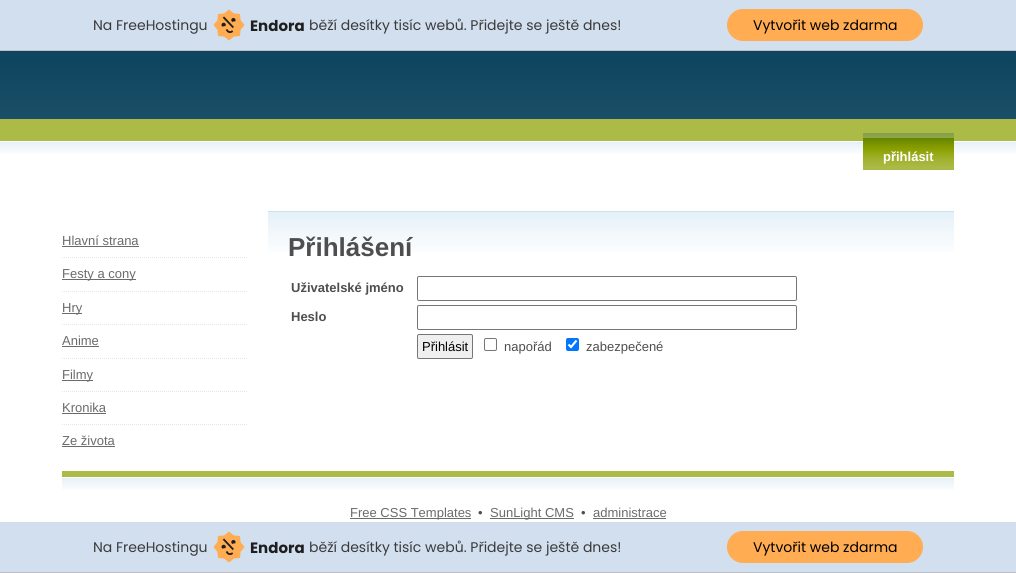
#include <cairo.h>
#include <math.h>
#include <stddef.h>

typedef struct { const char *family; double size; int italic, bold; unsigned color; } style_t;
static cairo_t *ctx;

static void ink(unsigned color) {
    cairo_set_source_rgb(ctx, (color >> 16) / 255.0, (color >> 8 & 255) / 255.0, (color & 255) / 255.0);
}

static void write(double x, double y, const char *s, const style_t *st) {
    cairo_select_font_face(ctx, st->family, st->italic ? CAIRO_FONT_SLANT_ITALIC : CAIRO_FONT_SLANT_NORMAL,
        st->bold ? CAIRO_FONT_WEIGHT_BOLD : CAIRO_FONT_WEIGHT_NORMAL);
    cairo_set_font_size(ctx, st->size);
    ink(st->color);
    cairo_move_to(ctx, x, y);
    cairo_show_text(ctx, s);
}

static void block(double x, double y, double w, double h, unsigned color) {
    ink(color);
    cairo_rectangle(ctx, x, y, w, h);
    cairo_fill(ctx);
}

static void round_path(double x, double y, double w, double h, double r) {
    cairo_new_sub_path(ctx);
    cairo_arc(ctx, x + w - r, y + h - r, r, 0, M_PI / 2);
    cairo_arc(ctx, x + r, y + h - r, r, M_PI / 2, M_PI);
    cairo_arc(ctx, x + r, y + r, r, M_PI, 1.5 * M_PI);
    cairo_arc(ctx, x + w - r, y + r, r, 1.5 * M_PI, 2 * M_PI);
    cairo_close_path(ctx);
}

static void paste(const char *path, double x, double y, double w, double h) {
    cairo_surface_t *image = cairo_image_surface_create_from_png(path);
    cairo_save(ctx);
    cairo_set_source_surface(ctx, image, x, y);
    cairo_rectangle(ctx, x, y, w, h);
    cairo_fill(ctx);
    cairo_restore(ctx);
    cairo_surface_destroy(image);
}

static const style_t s1 = {"Poppins", 14, 0, 0, 0x3a3a3a};
static const style_t s2 = {"Poppins", 15, 0, 1, 0x1e1e1e};
static const style_t s3 = {"Poppins", 14, 0, 0, 0x000000};
static const style_t s4 = {"Liberation Sans", 13, 0, 1, 0xffffff};
static const style_t s5 = {"Liberation Sans", 13, 0, 0, 0x6b6b6b};
static const style_t s6 = {"Liberation Sans", 26, 0, 1, 0x4e4e4e};
static const style_t s7 = {"Liberation Sans", 13, 0, 1, 0x4e4e4e};
static const style_t s8 = {"Liberation Sans", 13, 0, 0, 0x000000};
static const style_t s9 = {"Liberation Sans", 13, 0, 0, 0x4e4e4e};

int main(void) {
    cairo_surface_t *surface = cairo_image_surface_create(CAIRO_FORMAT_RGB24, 1016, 573);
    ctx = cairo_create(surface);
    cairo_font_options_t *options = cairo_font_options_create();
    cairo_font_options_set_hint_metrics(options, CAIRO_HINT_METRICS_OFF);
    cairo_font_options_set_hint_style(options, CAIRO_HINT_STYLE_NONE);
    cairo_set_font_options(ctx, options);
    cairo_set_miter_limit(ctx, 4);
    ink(0xffffff);
    cairo_paint(ctx);
    paste("pic1.png", 0, 51, 1016, 103);
    block(0, 0, 1016, 50, 0xd2dfef);
    block(0, 50, 1016, 1, 0xbebfc4);
    write(93, 30, "Na FreeHostingu", &s1);
    paste("pic2.png", 213, 9, 32, 32);
    write(250, 31, "Endora", &s2);
    write(309, 30, "běží desítky tisíc webů. Přidejte se ještě dnes!", &s1);
    ink(0xffac52);
    round_path(727, 9, 196, 32, 16);
    cairo_fill(ctx);
    write(753, 30, "Vytvořit web zdarma", &s3);
    block(863, 167, 91, 3, 0xabba47);
    paste("pic3.png", 863, 133, 91, 34);
    write(883, 161, "přihlásit", &s4);
    write(62, 245, "Hlavní strana", &s5);
    block(62, 246, 77, 1, 0x6b6b6b);
    paste("pic4.png", 62, 257, 185, 1);
    block(62, 279, 74, 1, 0x6b6b6b);
    write(62, 278, "Festy a cony", &s5);
    paste("pic4.png", 62, 291, 185, 1);
    block(62, 313, 20, 1, 0x6b6b6b);
    write(62, 312, "Hry", &s5);
    paste("pic4.png", 62, 324, 185, 1);
    write(62, 345, "Anime", &s5);
    block(62, 346, 37, 1, 0x6b6b6b);
    paste("pic4.png", 62, 358, 185, 1);
    block(62, 380, 31, 1, 0x6b6b6b);
    write(62, 379, "Filmy", &s5);
    paste("pic4.png", 62, 391, 185, 1);
    write(62, 412, "Kronika", &s5);
    block(62, 413, 44, 1, 0x6b6b6b);
    paste("pic4.png", 62, 424, 185, 1);
    write(62, 445, "Ze života", &s5);
    block(62, 446, 53, 1, 0x6b6b6b);
    paste("pic5.png", 268, 212, 686, 40);
    block(268, 211, 686, 1, 0xcbe1ef);
    write(288, 256, "Přihlášení", &s6);
    write(291, 292, "Uživatelské jméno", &s7);
    round_path(417.5, 276.5, 379, 24, 1.5);
    ink(0x767676);
    cairo_set_line_width(ctx, 1);
    cairo_stroke(ctx);
    write(291, 321, "Heslo", &s7);
    round_path(417.5, 305.5, 379, 24, 1.5);
    ink(0x767676);
    cairo_stroke(ctx);
    ink(0xefefef);
    round_path(417.5, 334.5, 55, 24, 1.5);
    cairo_fill_preserve(ctx);
    ink(0x767676);
    cairo_stroke(ctx);
    write(422, 351, "Přihlásit", &s8);
    round_path(484.5, 338.5, 12, 12, 1.5);
    ink(0x767676);
    cairo_stroke(ctx);
    write(504, 351, "napořád", &s9);
    ink(0x0075ff);
    round_path(566, 338, 13, 13, 2);
    cairo_fill(ctx);
    cairo_new_path(ctx);
    cairo_move_to(ctx, 568.5, 344.5);
    cairo_line_to(ctx, 571, 347);
    cairo_line_to(ctx, 576.5, 340.5);
    ink(0xffffff);
    cairo_set_line_width(ctx, 2.1);
    cairo_stroke(ctx);
    write(586, 351, "zabezpečené", &s9);
    paste("pic6.png", 62, 471, 892, 19);
    block(350, 518, 121, 1, 0x6b6b6b);
    write(350, 517, "Free CSS Templates", &s5);
    write(478, 517, "•", &s9);
    block(490, 518, 84, 1, 0x6b6b6b);
    write(490, 517, "SunLight CMS", &s5);
    write(581, 517, "•", &s9);
    write(593, 517, "administrace", &s5);
    block(593, 518, 73, 1, 0x6b6b6b);
    block(0, 522, 1016, 50, 0xd2dfef);
    block(0, 572, 1016, 1, 0xbebfc4);
    write(93, 552, "Na FreeHostingu", &s1);
    paste("pic2.png", 213, 531, 32, 32);
    write(250, 553, "Endora", &s2);
    write(309, 552, "běží desítky tisíc webů. Přidejte se ještě dnes!", &s1);
    ink(0xffac52);
    round_path(727, 531, 196, 32, 16);
    cairo_fill(ctx);
    write(753, 552, "Vytvořit web zdarma", &s3);
    cairo_surface_write_to_png(surface, "screenshot.png");
    cairo_font_options_destroy(options);
    cairo_destroy(ctx);
    cairo_surface_destroy(surface);
    return 0;
}
